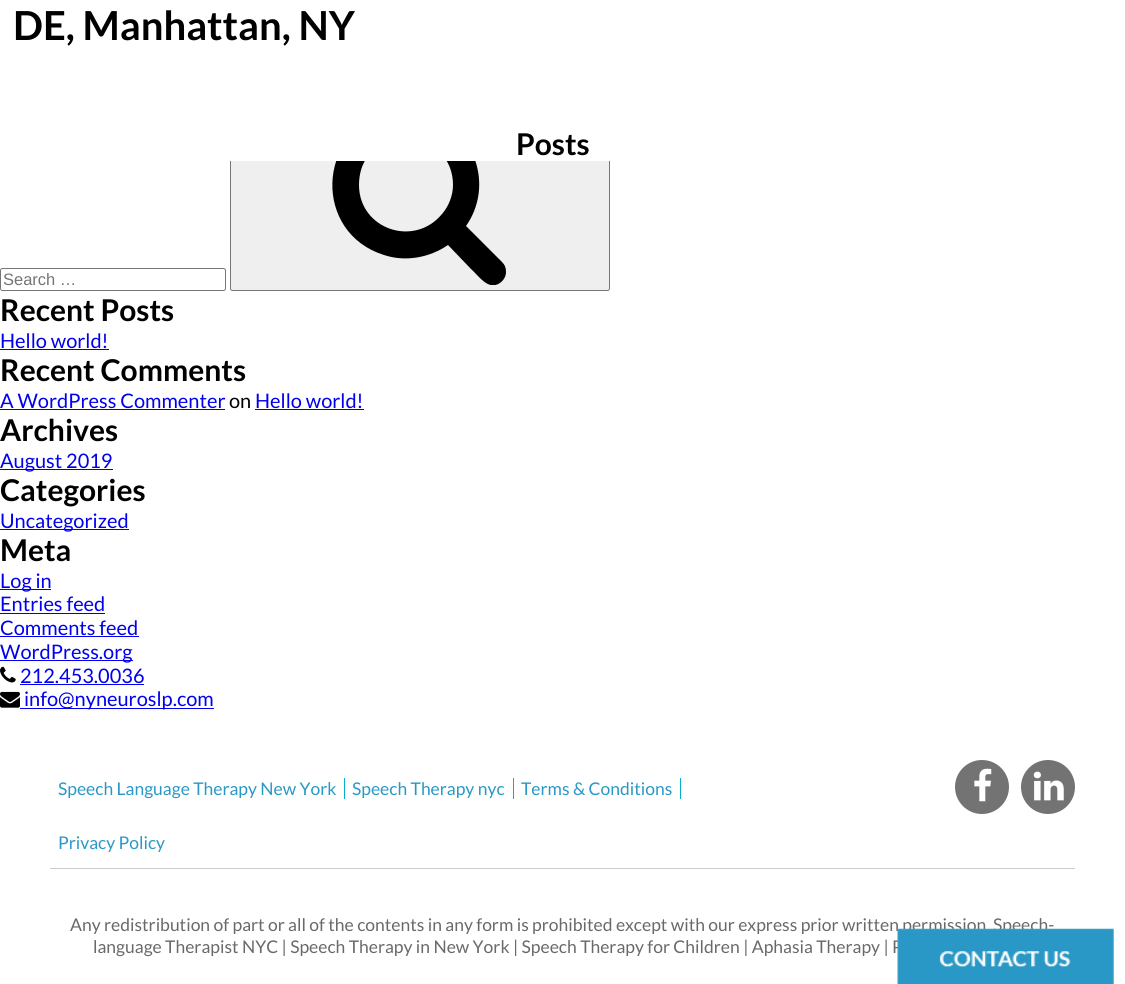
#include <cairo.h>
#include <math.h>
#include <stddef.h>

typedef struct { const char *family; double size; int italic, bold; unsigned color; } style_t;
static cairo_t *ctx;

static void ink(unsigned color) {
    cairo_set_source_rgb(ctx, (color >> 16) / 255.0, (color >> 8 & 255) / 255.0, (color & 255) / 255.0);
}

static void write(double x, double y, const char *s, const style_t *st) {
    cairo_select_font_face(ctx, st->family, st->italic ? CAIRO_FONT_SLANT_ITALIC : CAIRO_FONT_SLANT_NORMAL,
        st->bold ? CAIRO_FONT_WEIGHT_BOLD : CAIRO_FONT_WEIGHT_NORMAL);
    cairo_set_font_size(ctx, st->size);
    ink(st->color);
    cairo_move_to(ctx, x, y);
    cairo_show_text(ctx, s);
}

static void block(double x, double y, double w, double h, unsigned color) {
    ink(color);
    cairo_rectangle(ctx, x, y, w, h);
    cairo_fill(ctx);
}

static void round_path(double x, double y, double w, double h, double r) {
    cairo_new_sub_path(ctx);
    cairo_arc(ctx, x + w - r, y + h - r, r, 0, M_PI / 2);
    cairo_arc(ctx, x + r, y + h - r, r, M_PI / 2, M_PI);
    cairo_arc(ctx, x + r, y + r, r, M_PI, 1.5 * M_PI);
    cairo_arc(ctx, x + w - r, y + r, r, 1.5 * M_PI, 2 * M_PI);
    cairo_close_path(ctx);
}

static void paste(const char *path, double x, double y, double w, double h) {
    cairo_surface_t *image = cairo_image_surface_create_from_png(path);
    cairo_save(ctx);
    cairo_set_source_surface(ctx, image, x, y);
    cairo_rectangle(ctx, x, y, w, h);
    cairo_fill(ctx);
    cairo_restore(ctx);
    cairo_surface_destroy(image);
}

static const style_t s1 = {"Lato", 40, 0, 1, 0x000000};
static const style_t s2 = {"Lato", 30, 0, 1, 0x000000};
static const style_t s3 = {"Liberation Sans", 16.5, 0, 0, 0x757575};
static const style_t s4 = {"Lato", 20, 0, 0, 0x0000ee};
static const style_t s5 = {"Lato", 20, 0, 0, 0x000000};
static const style_t s6 = {"Lato", 17.5, 0, 0, 0x2a98c6};
static const style_t s7 = {"Lato", 17.5, 0, 0, 0x6a6969};

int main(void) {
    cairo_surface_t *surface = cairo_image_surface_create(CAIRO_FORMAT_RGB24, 1125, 984);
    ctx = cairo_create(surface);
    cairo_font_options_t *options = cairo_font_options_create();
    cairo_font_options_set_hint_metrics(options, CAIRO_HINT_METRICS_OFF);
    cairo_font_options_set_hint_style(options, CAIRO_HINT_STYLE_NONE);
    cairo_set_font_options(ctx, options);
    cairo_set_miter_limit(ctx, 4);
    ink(0xffffff);
    cairo_paint(ctx);
    write(13, 40, "DE, Manhattan, NY", &s1);
    ink(0xefefef);
    round_path(230.5, 95.5, 379, 195, 2);
    cairo_fill_preserve(ctx);
    ink(0x767676);
    cairo_set_line_width(ctx, 1);
    cairo_stroke(ctx);
    cairo_save(ctx);
    cairo_rectangle(ctx, 233, 98, 375, 187);
    cairo_clip(ctx);
    ink(0x000000);
    cairo_new_path(ctx);
    cairo_move_to(ctx, 453, 185);
    cairo_curve_to(ctx, 453, 140, 397, 121, 369, 155);
    cairo_curve_to(ctx, 362, 163, 359, 174, 359, 185);
    cairo_curve_to(ctx, 359, 229, 414, 248, 442, 214);
    cairo_curve_to(ctx, 449, 206, 453, 195, 453, 185);
    cairo_close_path(ctx);
    cairo_move_to(ctx, 506, 272);
    cairo_curve_to(ctx, 506, 276, 504, 280, 500, 283);
    cairo_curve_to(ctx, 488, 291, 479, 276, 471, 269);
    cairo_line_to(ctx, 448, 245);
    cairo_curve_to(ctx, 429, 258, 405, 262, 384, 255);
    cairo_curve_to(ctx, 313, 233, 316, 132, 388, 113);
    cairo_curve_to(ctx, 404, 109, 422, 111, 438, 118);
    cairo_curve_to(ctx, 478, 138, 492, 189, 466, 226);
    cairo_line_to(ctx, 502, 262);
    cairo_curve_to(ctx, 505, 265, 506, 268, 506, 272);
    cairo_close_path(ctx);
    cairo_fill(ctx);
    cairo_restore(ctx);
    block(230, 95, 380, 66, 0xffffff);
    write(516, 155, "Posts", &s2);
    round_path(0.5, 268.5, 225, 22, 2);
    ink(0x767676);
    cairo_stroke(ctx);
    write(3, 285, "Search …", &s3);
    write(0, 321, "Recent Posts", &s2);
    write(0, 348, "Hello world!", &s4);
    block(0, 349, 109, 1, 0x0000ee);
    write(0, 381, "Recent Comments", &s2);
    write(0, 408, "A WordPress Commenter", &s4);
    block(0, 409, 225, 1, 0x0000ee);
    write(229, 408, "on", &s5);
    write(255, 408, "Hello world!", &s4);
    block(255, 409, 109, 1, 0x0000ee);
    write(0, 441, "Archives", &s2);
    block(0, 469, 113, 1, 0x0000ee);
    write(0, 468, "August 2019", &s4);
    write(0, 501, "Categories", &s2);
    block(0, 529, 129, 1, 0x0000ee);
    write(0, 528, "Uncategorized", &s4);
    write(0, 561, "Meta", &s2);
    block(0, 589, 51, 1, 0x0000ee);
    write(0, 588, "Log in", &s4);
    write(0, 611, "Entries feed", &s4);
    block(0, 613, 105, 1, 0x0000ee);
    write(0, 635, "Comments feed", &s4);
    block(0, 636, 139, 1, 0x0000ee);
    block(0, 660, 133, 1, 0x0000ee);
    write(0, 659, "WordPress.org", &s4);
    paste("pic1.png", 0, 666, 16, 17);
    write(20, 683, "212.453.0036", &s4);
    block(20, 684, 124, 1, 0x0000ee);
    paste("pic2.png", 0, 691, 20, 17);
    block(20, 708, 194, 1, 0x0000ee);
    write(24, 706, "info@nyneuroslp.com", &s4);
    write(58, 795, "Speech Language Therapy New York", &s6);
    block(344, 778, 1, 21, 0x07aed2);
    write(352, 795, "Speech Therapy nyc", &s6);
    block(513, 778, 1, 21, 0x07aed2);
    write(521, 795, "Terms & Conditions", &s6);
    block(680, 778, 1, 21, 0x07aed2);
    write(58, 849, "Privacy Policy", &s6);
    ink(0x737373);
    cairo_new_path(ctx);
    cairo_arc(ctx, 982, 787, 27, 0, 2 * M_PI);
    cairo_fill(ctx);
    paste("pic3.png", 974, 768, 18, 34);
    cairo_arc(ctx, 1048, 787, 27, 0, 2 * M_PI);
    cairo_fill(ctx);
    paste("pic4.png", 1033, 771, 31, 30);
    block(50, 868, 1025, 1, 0xcccccc);
    write(70, 931, "Any redistribution of part or all of the contents in any form is prohibited except with our express prior written permission", &s7);
    write(993, 931, "Speech-", &s7);
    write(93, 953, "language Therapist NYC | Speech Therapy in New York | Speech Therapy for Children | Aphasia Therapy | P", &s7);
    paste("pic5.png", 897, 928, 217, 56);
    cairo_surface_write_to_png(surface, "screenshot.png");
    cairo_font_options_destroy(options);
    cairo_destroy(ctx);
    cairo_surface_destroy(surface);
    return 0;
}
